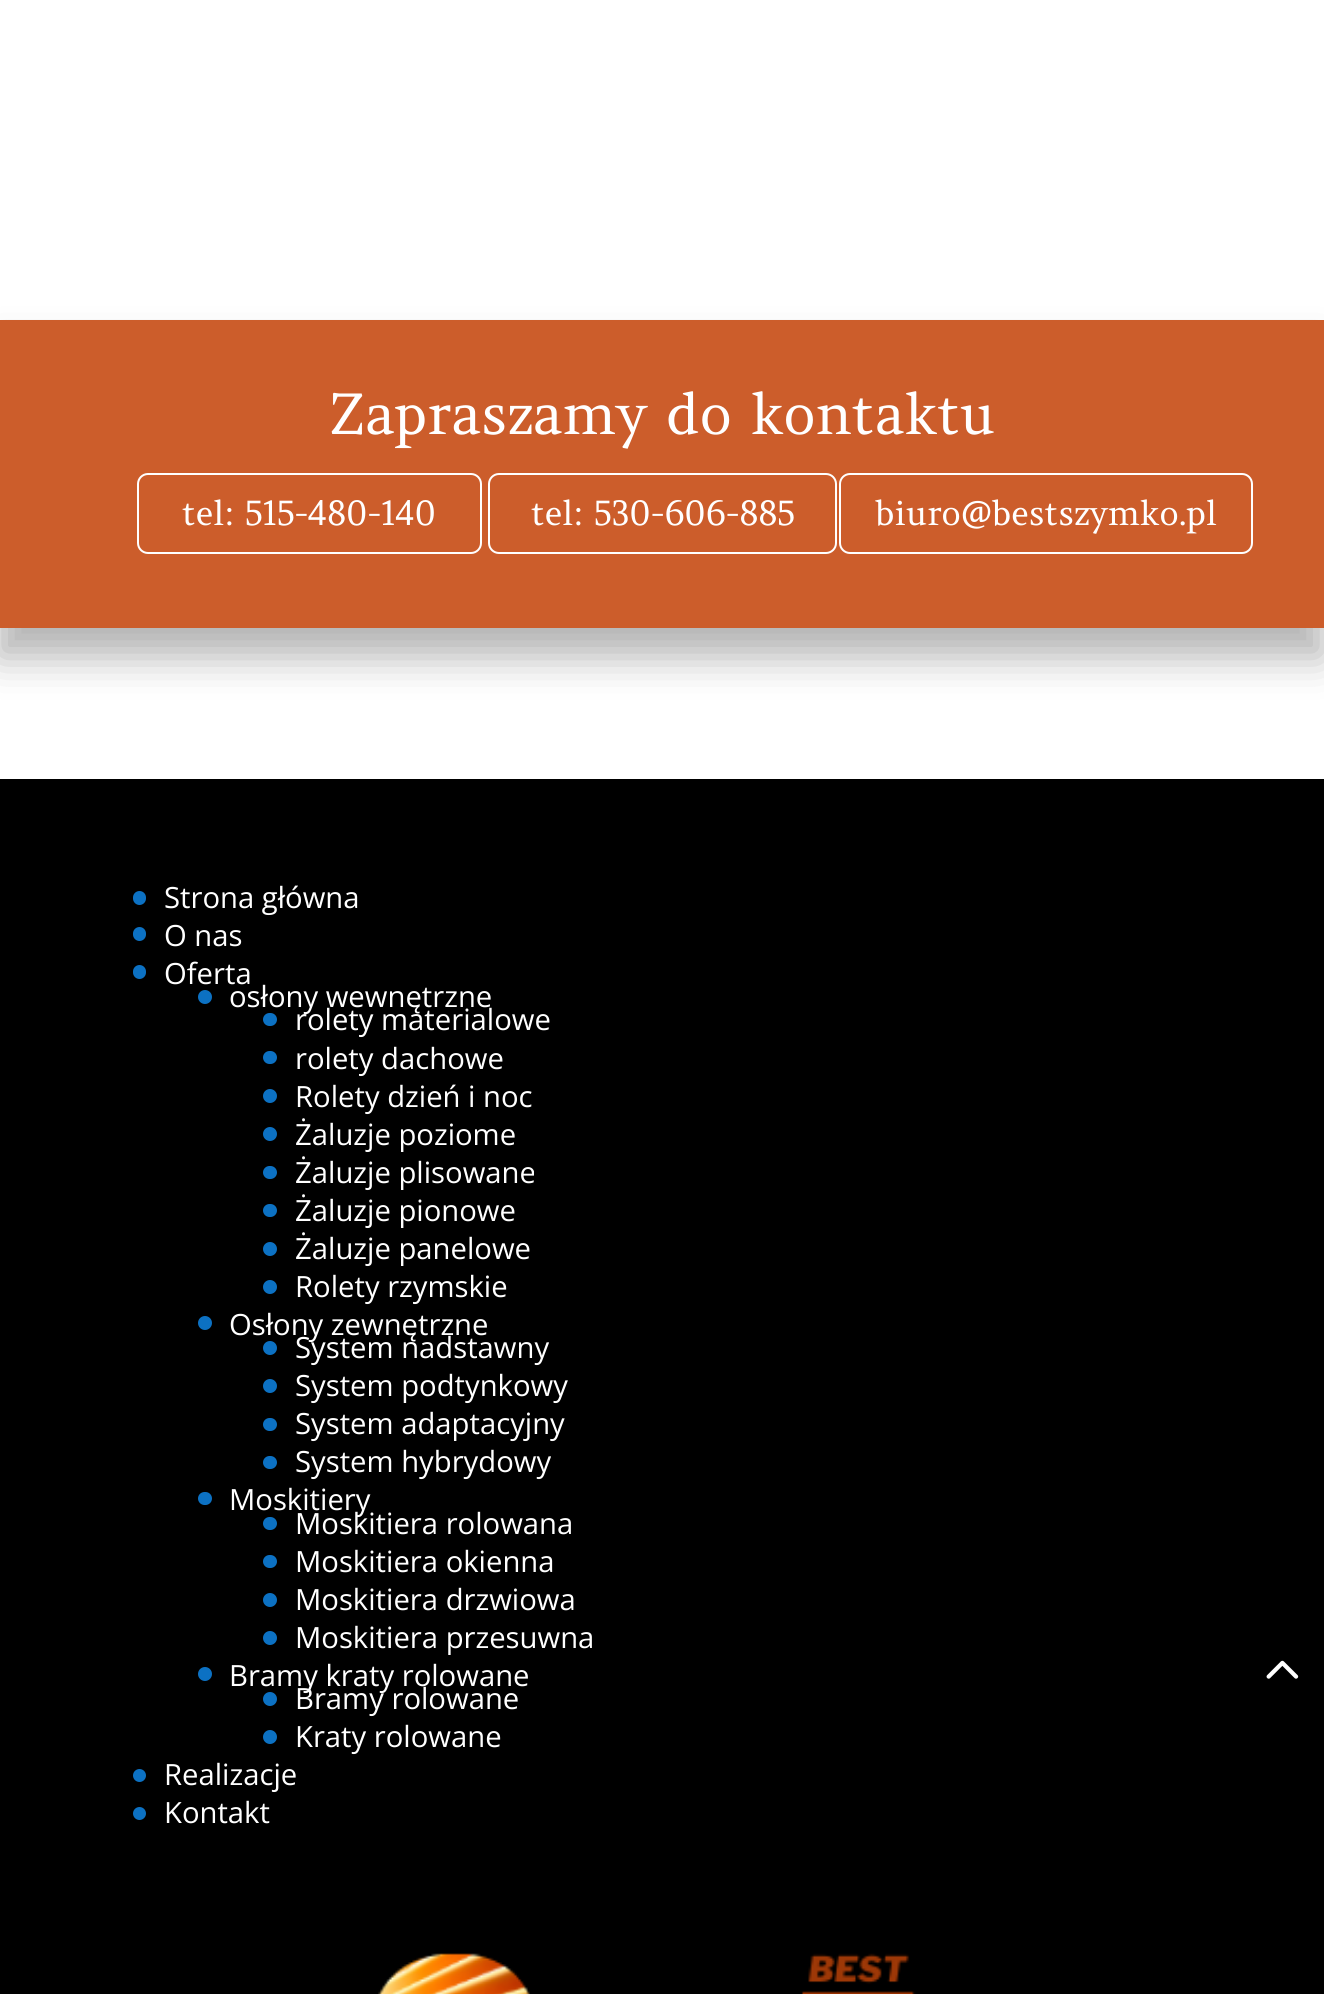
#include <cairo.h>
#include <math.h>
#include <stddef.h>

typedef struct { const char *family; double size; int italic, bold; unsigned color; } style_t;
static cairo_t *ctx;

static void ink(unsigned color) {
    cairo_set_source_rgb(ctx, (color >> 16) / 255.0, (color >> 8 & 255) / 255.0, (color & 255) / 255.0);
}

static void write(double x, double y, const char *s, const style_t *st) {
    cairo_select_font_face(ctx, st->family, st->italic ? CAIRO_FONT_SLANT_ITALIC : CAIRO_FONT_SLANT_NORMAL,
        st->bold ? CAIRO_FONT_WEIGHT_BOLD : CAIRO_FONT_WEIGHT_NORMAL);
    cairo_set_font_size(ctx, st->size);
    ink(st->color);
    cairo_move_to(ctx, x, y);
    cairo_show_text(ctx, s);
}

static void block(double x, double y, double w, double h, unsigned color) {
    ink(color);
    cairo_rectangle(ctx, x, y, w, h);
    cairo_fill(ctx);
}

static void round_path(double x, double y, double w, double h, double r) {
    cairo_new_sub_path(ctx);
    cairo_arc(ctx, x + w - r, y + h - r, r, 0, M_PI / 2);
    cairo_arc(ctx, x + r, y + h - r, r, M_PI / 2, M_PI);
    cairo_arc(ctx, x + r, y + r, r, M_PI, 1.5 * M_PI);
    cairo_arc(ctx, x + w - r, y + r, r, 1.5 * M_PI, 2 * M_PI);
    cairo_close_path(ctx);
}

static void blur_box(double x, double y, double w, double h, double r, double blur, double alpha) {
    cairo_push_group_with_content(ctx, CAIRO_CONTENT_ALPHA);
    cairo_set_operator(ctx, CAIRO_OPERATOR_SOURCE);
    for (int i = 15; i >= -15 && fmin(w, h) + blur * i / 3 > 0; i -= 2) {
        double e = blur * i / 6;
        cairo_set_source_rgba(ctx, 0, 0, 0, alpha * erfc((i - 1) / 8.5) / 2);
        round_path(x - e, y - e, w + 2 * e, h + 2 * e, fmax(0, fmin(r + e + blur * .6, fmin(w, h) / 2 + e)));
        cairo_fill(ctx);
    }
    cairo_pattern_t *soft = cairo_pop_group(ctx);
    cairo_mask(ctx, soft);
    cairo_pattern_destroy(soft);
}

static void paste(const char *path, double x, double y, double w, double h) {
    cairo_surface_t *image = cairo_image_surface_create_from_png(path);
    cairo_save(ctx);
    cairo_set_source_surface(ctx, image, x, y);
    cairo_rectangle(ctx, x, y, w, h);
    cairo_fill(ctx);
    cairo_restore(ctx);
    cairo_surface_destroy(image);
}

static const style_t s1 = {"Amethysta", 56.25, 0, 0, 0xffffff};
static const style_t s2 = {"Amethysta", 33.75, 0, 0, 0xffffff};
static const style_t s3 = {"Open Sans", 29.25, 0, 0, 0xffffff};

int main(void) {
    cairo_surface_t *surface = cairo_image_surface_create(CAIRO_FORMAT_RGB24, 1324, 1994);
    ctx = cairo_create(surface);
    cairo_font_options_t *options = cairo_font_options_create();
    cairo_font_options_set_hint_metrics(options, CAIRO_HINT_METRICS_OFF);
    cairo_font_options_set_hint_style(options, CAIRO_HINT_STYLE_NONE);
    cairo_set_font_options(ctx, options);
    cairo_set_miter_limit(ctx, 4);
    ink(0xffffff);
    cairo_paint(ctx);
    ink(0x000000);
    blur_box(-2, 349, 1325, 308, 0, 20, 0.3);
    block(0, 320, 1324, 308, 0xcc5d2b);
    write(330, 434, "Zapraszamy do kontaktu", &s1);
    round_path(138, 474, 343, 79, 10);
    cairo_stroke(ctx);
    write(182, 525, "tel: 515-480-140", &s2);
    round_path(489, 474, 347, 79, 10);
    cairo_stroke(ctx);
    write(531, 525, "tel: 530-606-885", &s2);
    round_path(840, 474, 412, 79, 10);
    cairo_stroke(ctx);
    write(875, 525, "biuro@bestszymko.pl", &s2);
    block(0, 779, 1324, 1215, 0x000000);
    ink(0x0c71c3);
    round_path(133, 891, 13, 14, 6.5);
    cairo_fill(ctx);
    write(164, 908, "Strona główna", &s3);
    ink(0x0c71c3);
    round_path(133, 927, 13, 14, 6.5);
    cairo_fill(ctx);
    write(164, 946, "O nas", &s3);
    ink(0x0c71c3);
    round_path(133, 965, 13, 14, 6.5);
    cairo_fill(ctx);
    write(164, 984, "Oferta", &s3);
    ink(0x0c71c3);
    cairo_new_path(ctx);
    cairo_arc(ctx, 205, 997, 7, 0, 2 * M_PI);
    cairo_fill(ctx);
    write(229, 1007, "osłony wewnętrzne", &s3);
    ink(0x0c71c3);
    round_path(263, 1013, 14, 13, 6.5);
    cairo_fill(ctx);
    write(295, 1030, "rolety materialowe", &s3);
    ink(0x0c71c3);
    round_path(263, 1051, 14, 13, 6.5);
    cairo_fill(ctx);
    write(295, 1069, "rolety dachowe", &s3);
    ink(0x0c71c3);
    cairo_new_path(ctx);
    cairo_arc(ctx, 270, 1096, 7, 0, 2 * M_PI);
    cairo_fill(ctx);
    write(295, 1107, "Rolety dzień i noc", &s3);
    ink(0x0c71c3);
    cairo_new_path(ctx);
    cairo_arc(ctx, 270, 1134, 7, 0, 2 * M_PI);
    cairo_fill(ctx);
    write(295, 1145, "Żaluzje poziome", &s3);
    ink(0x0c71c3);
    round_path(263, 1166, 14, 13, 6.5);
    cairo_fill(ctx);
    write(295, 1183, "Żaluzje plisowane", &s3);
    ink(0x0c71c3);
    round_path(263, 1204, 14, 13, 6.5);
    cairo_fill(ctx);
    write(295, 1221, "Żaluzje pionowe", &s3);
    ink(0x0c71c3);
    cairo_new_path(ctx);
    cairo_arc(ctx, 270, 1249, 7, 0, 2 * M_PI);
    cairo_fill(ctx);
    write(295, 1259, "Żaluzje panelowe", &s3);
    ink(0x0c71c3);
    cairo_new_path(ctx);
    cairo_arc(ctx, 270, 1287, 7, 0, 2 * M_PI);
    cairo_fill(ctx);
    write(295, 1297, "Rolety rzymskie", &s3);
    ink(0x0c71c3);
    cairo_new_path(ctx);
    cairo_arc(ctx, 205, 1323, 7, 0, 2 * M_PI);
    cairo_fill(ctx);
    write(229, 1335, "Osłony zewnętrzne", &s3);
    ink(0x0c71c3);
    cairo_new_path(ctx);
    cairo_arc(ctx, 270, 1348, 7, 0, 2 * M_PI);
    cairo_fill(ctx);
    write(295, 1358, "System nadstawny", &s3);
    ink(0x0c71c3);
    cairo_new_path(ctx);
    cairo_arc(ctx, 270, 1386, 7, 0, 2 * M_PI);
    cairo_fill(ctx);
    write(295, 1396, "System podtynkowy", &s3);
    ink(0x0c71c3);
    round_path(263, 1418, 14, 13, 6.5);
    cairo_fill(ctx);
    write(295, 1434, "System adaptacyjny", &s3);
    ink(0x0c71c3);
    round_path(263, 1456, 14, 13, 6.5);
    cairo_fill(ctx);
    write(295, 1472, "System hybrydowy", &s3);
    ink(0x0c71c3);
    round_path(198, 1492, 14, 13, 6.5);
    cairo_fill(ctx);
    write(229, 1510, "Moskitiery", &s3);
    ink(0x0c71c3);
    round_path(263, 1517, 14, 13, 6.5);
    cairo_fill(ctx);
    write(295, 1534, "Moskitiera rolowana", &s3);
    ink(0x0c71c3);
    round_path(263, 1555, 14, 13, 6.5);
    cairo_fill(ctx);
    write(295, 1572, "Moskitiera okienna", &s3);
    ink(0x0c71c3);
    cairo_new_path(ctx);
    cairo_arc(ctx, 270, 1600, 7, 0, 2 * M_PI);
    cairo_fill(ctx);
    write(295, 1610, "Moskitiera drzwiowa", &s3);
    ink(0x0c71c3);
    cairo_new_path(ctx);
    cairo_arc(ctx, 270, 1638, 7, 0, 2 * M_PI);
    cairo_fill(ctx);
    write(295, 1648, "Moskitiera przesuwna", &s3);
    ink(0x0c71c3);
    cairo_new_path(ctx);
    cairo_arc(ctx, 205, 1674, 7, 0, 2 * M_PI);
    cairo_fill(ctx);
    write(229, 1686, "Bramy kraty rolowane", &s3);
    ink(0x0c71c3);
    cairo_new_path(ctx);
    cairo_arc(ctx, 270, 1699, 7, 0, 2 * M_PI);
    cairo_fill(ctx);
    write(295, 1709, "Bramy rolowane", &s3);
    ink(0x0c71c3);
    cairo_new_path(ctx);
    cairo_arc(ctx, 270, 1737, 7, 0, 2 * M_PI);
    cairo_fill(ctx);
    write(295, 1747, "Kraty rolowane", &s3);
    ink(0x0c71c3);
    cairo_new_path(ctx);
    cairo_arc(ctx, 139.5, 1775.5, 6.5, 0, 2 * M_PI);
    cairo_fill(ctx);
    write(164, 1785, "Realizacje", &s3);
    ink(0x0c71c3);
    cairo_new_path(ctx);
    cairo_arc(ctx, 139.5, 1813.5, 6.5, 0, 2 * M_PI);
    cairo_fill(ctx);
    write(164, 1823, "Kontakt", &s3);
    paste("pic1.png", 378, 1953, 538, 41);
    paste("pic2.png", 1266, 1660, 33, 19);
    cairo_surface_write_to_png(surface, "screenshot.png");
    cairo_font_options_destroy(options);
    cairo_destroy(ctx);
    cairo_surface_destroy(surface);
    return 0;
}
